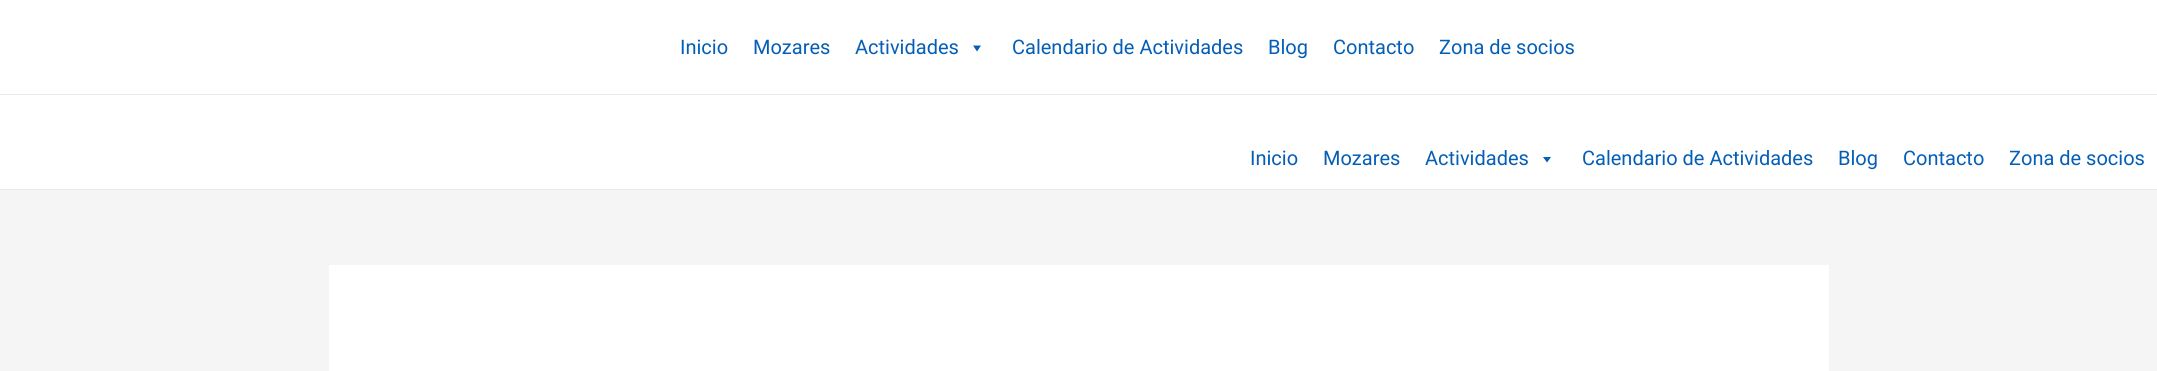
#include <cairo.h>
#include <math.h>
#include <stddef.h>

typedef struct { const char *family; double size; int italic, bold; unsigned color; } style_t;
static cairo_t *ctx;

static void ink(unsigned color) {
    cairo_set_source_rgb(ctx, (color >> 16) / 255.0, (color >> 8 & 255) / 255.0, (color & 255) / 255.0);
}

static void write(double x, double y, const char *s, const style_t *st) {
    cairo_select_font_face(ctx, st->family, st->italic ? CAIRO_FONT_SLANT_ITALIC : CAIRO_FONT_SLANT_NORMAL,
        st->bold ? CAIRO_FONT_WEIGHT_BOLD : CAIRO_FONT_WEIGHT_NORMAL);
    cairo_set_font_size(ctx, st->size);
    ink(st->color);
    cairo_move_to(ctx, x, y);
    cairo_show_text(ctx, s);
}

static void block(double x, double y, double w, double h, unsigned color) {
    ink(color);
    cairo_rectangle(ctx, x, y, w, h);
    cairo_fill(ctx);
}

static const style_t s1 = {"Roboto", 20, 0, 0, 0x045eb6};

int main(void) {
    cairo_surface_t *surface = cairo_image_surface_create(CAIRO_FORMAT_RGB24, 2157, 371);
    ctx = cairo_create(surface);
    cairo_font_options_t *options = cairo_font_options_create();
    cairo_font_options_set_hint_metrics(options, CAIRO_HINT_METRICS_OFF);
    cairo_font_options_set_hint_style(options, CAIRO_HINT_STYLE_NONE);
    cairo_set_font_options(ctx, options);
    cairo_set_miter_limit(ctx, 4);
    ink(0xf5f5f5);
    cairo_paint(ctx);
    block(0, 0, 2157, 94, 0xffffff);
    block(0, 94, 2157, 1, 0xeaeaea);
    write(680, 54, "Inicio", &s1);
    write(753, 54, "Mozares", &s1);
    write(855, 54, "Actividades", &s1);
    cairo_new_path(ctx);
    cairo_move_to(ctx, 981, 45.5);
    cairo_line_to(ctx, 977, 51.5);
    cairo_line_to(ctx, 973, 45.5);
    cairo_close_path(ctx);
    cairo_fill(ctx);
    write(1012, 54, "Calendario de Actividades", &s1);
    write(1268, 54, "Blog", &s1);
    write(1333, 54, "Contacto", &s1);
    write(1439, 54, "Zona de socios", &s1);
    block(0, 95, 2157, 94, 0xffffff);
    block(0, 189, 2157, 1, 0xeaeaea);
    write(1250, 165, "Inicio", &s1);
    write(1323, 165, "Mozares", &s1);
    write(1425, 165, "Actividades", &s1);
    cairo_new_path(ctx);
    cairo_move_to(ctx, 1551, 157);
    cairo_line_to(ctx, 1547, 162.5);
    cairo_line_to(ctx, 1543, 157);
    cairo_close_path(ctx);
    cairo_fill(ctx);
    write(1582, 165, "Calendario de Actividades", &s1);
    write(1838, 165, "Blog", &s1);
    write(1903, 165, "Contacto", &s1);
    write(2009, 165, "Zona de socios", &s1);
    block(329, 265, 1500, 106, 0xffffff);
    cairo_surface_write_to_png(surface, "screenshot.png");
    cairo_font_options_destroy(options);
    cairo_destroy(ctx);
    cairo_surface_destroy(surface);
    return 0;
}
